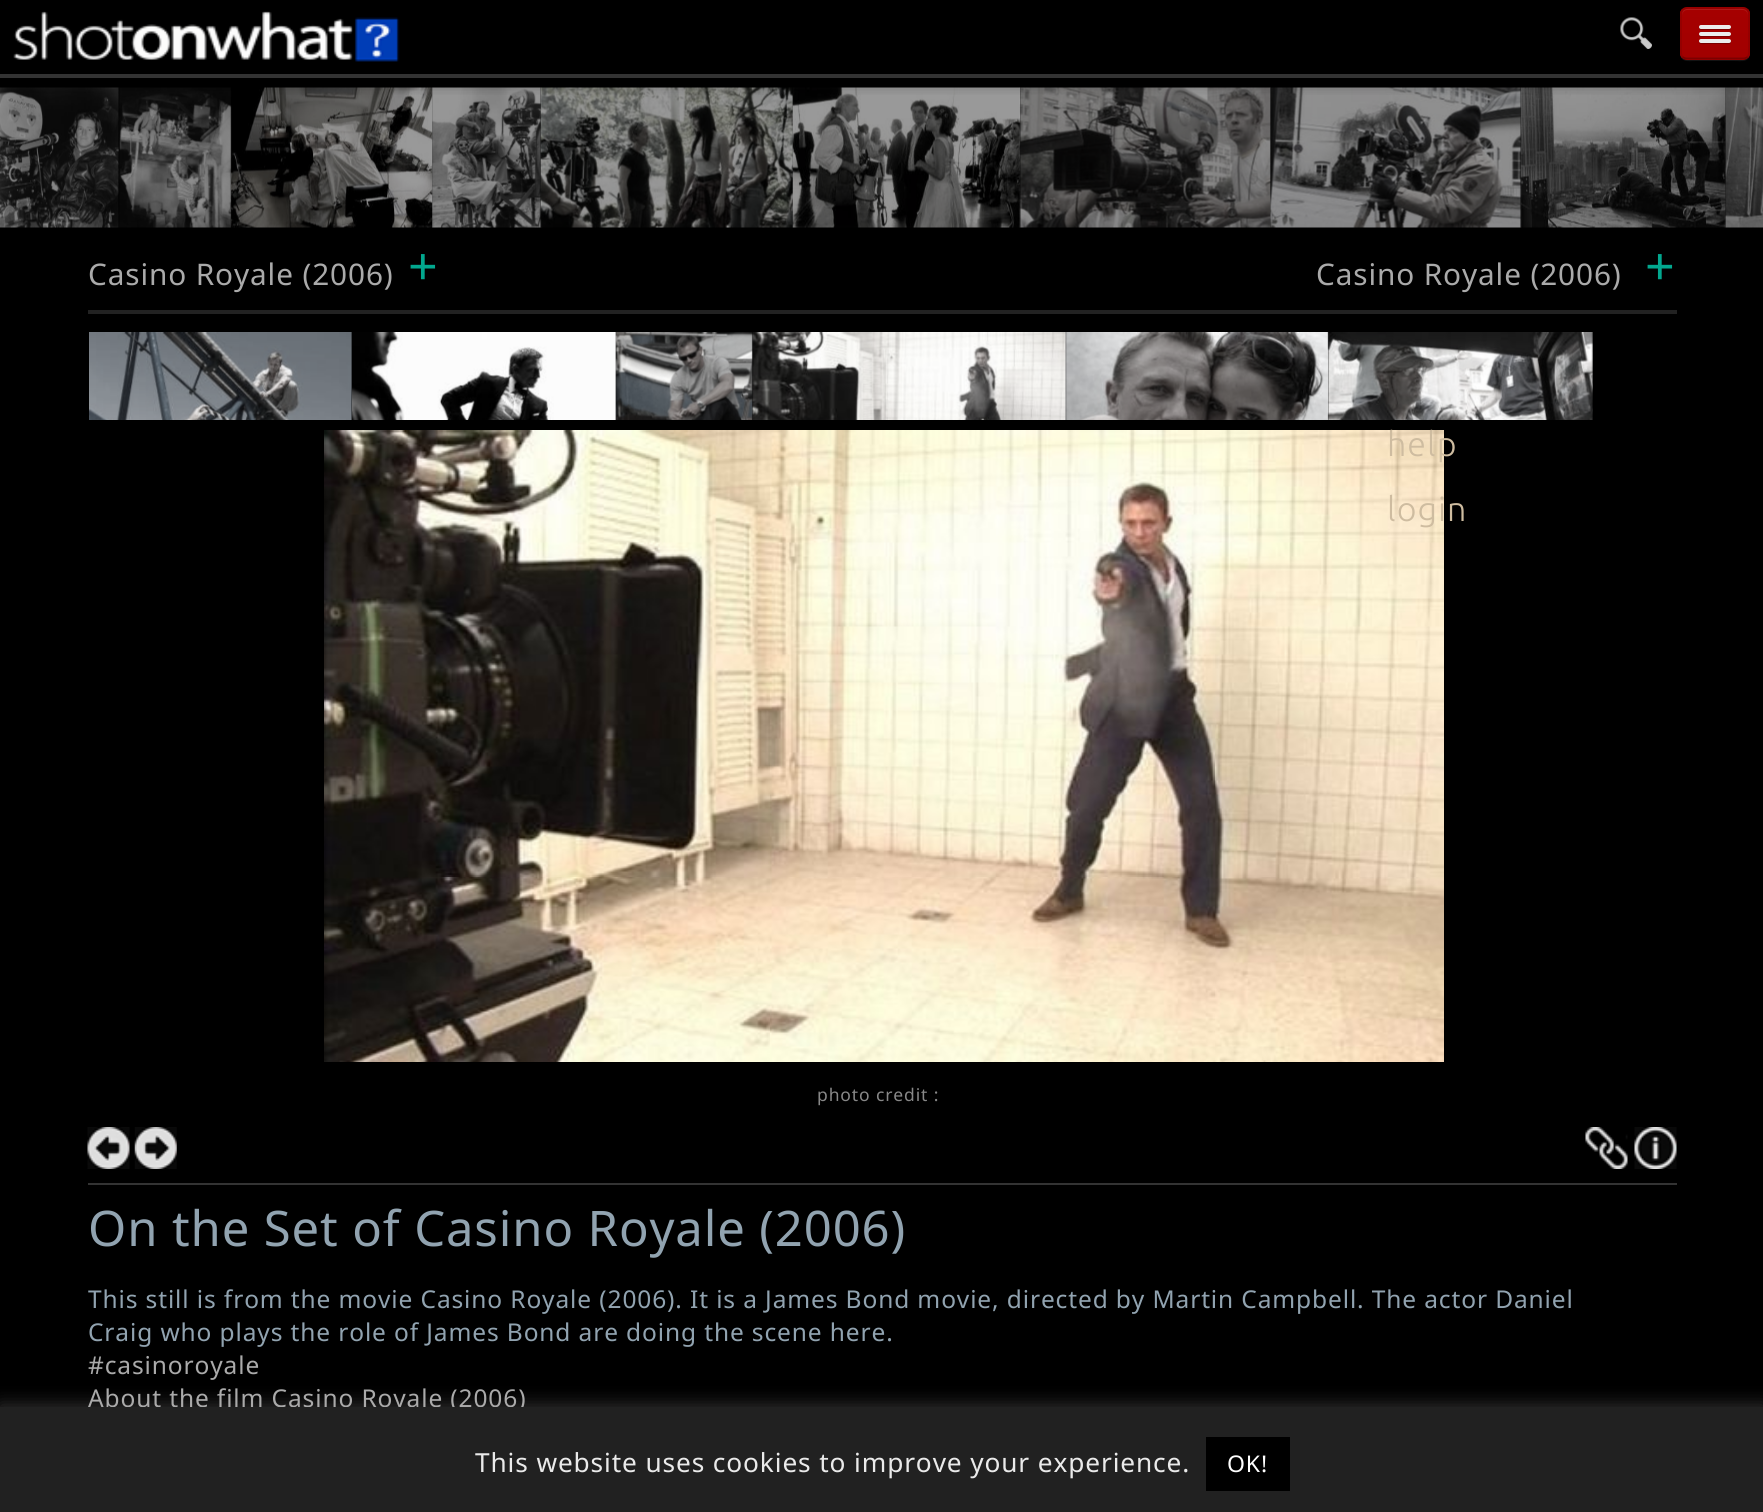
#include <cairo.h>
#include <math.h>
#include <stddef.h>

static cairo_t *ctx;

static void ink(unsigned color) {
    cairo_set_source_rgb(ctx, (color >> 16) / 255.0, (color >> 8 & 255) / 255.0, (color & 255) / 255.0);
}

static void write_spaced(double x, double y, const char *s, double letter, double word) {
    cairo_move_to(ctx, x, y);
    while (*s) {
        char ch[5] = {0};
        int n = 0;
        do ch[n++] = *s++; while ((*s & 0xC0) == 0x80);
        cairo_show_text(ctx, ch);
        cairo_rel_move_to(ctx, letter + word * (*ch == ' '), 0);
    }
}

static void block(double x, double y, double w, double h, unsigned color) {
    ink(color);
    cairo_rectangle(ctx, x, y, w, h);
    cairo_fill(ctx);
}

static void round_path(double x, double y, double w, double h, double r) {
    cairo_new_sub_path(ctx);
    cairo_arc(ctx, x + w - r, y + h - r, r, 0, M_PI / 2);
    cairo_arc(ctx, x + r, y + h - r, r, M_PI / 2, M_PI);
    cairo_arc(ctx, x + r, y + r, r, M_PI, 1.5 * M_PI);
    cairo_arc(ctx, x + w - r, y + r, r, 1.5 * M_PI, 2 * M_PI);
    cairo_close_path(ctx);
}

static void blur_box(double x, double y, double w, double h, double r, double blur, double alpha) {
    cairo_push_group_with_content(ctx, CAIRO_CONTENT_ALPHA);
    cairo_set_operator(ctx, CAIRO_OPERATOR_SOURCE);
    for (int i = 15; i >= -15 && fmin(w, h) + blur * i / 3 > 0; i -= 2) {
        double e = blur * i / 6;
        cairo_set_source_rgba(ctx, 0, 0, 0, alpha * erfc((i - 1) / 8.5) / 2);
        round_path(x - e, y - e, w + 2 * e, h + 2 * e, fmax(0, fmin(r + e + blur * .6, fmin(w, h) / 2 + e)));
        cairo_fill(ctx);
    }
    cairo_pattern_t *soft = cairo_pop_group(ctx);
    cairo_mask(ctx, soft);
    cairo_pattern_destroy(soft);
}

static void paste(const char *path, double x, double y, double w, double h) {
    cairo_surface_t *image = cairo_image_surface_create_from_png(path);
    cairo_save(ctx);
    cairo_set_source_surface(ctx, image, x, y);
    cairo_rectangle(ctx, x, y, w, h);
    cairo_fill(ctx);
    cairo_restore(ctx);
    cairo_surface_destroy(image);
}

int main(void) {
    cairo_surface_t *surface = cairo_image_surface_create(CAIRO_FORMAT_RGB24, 1763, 1512);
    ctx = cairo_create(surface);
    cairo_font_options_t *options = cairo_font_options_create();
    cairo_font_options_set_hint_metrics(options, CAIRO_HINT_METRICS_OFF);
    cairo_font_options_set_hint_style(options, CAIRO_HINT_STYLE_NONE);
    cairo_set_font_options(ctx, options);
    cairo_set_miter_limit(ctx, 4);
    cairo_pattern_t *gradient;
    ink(0x000000);
    cairo_paint(ctx);
    paste("pic3.png", 0, 87, 119, 141);
    paste("pic4.png", 118, 87, 114, 141);
    paste("pic5.png", 231, 87, 202, 141);
    paste("pic6.png", 432, 87, 110, 141);
    paste("pic7.png", 540, 87, 253, 141);
    paste("pic8.png", 792, 87, 229, 141);
    paste("pic9.png", 1019, 87, 252, 141);
    paste("pic10.png", 1270, 87, 252, 141);
    paste("pic11.png", 1520, 87, 206, 141);
    paste("pic12.png", 1724, 87, 39, 141);
    cairo_save(ctx);
    cairo_rectangle(ctx, 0, 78, 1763, 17);
    cairo_clip(ctx);
    blur_box(7, 0, 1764, 77, 0, 9, 0.9);
    cairo_restore(ctx);
    block(0, 74, 1763, 4, 0x333333);
    paste("pic1.png", 13, 11, 387, 51);
    paste("pic2.png", 1620, 17, 32, 32);
    ink(0x131313);
    cairo_new_path(ctx);
    cairo_move_to(ctx, 1680, 52);
    cairo_curve_to(ctx, 1680, 63, 1688, 61, 1696, 61);
    cairo_line_to(ctx, 1734, 61);
    cairo_curve_to(ctx, 1742, 61, 1750, 63, 1750, 52);
    cairo_curve_to(ctx, 1750, 56, 1747, 60, 1743, 60);
    cairo_line_to(ctx, 1687, 60);
    cairo_curve_to(ctx, 1683, 60, 1680, 56, 1680, 52);
    cairo_close_path(ctx);
    cairo_fill(ctx);
    ink(0xa50000);
    round_path(1680, 7, 70, 53, 7);
    cairo_fill(ctx);
    cairo_save(ctx);
    round_path(1680, 7, 70, 53, 7);
    cairo_clip(ctx);
    gradient = cairo_pattern_create_linear(1715, 9, 1715, 58);
    cairo_pattern_add_color_stop_rgba(gradient, 0, 0.647, 0, 0, 1);
    cairo_pattern_add_color_stop_rgba(gradient, 1, 0.635, 0, 0, 1);
    cairo_set_source(ctx, gradient);
    cairo_pattern_destroy(gradient);
    cairo_rectangle(ctx, 1680, 9, 70, 49);
    cairo_fill(ctx);
    cairo_restore(ctx);
    ink(0xae1919);
    cairo_new_path(ctx);
    cairo_move_to(ctx, 1687, 10);
    cairo_line_to(ctx, 1743, 10);
    cairo_curve_to(ctx, 1746, 10, 1748, 13, 1748, 16);
    cairo_curve_to(ctx, 1748, 7, 1741, 9, 1734, 9);
    cairo_line_to(ctx, 1696, 9);
    cairo_curve_to(ctx, 1689, 9, 1682, 7, 1682, 16);
    cairo_curve_to(ctx, 1682, 13, 1684, 10, 1687, 10);
    cairo_close_path(ctx);
    cairo_fill(ctx);
    cairo_new_path(ctx);
    cairo_move_to(ctx, 1747.5, 57);
    cairo_curve_to(ctx, 1746, 58, 1744.5, 58.5, 1743, 58.5);
    cairo_line_to(ctx, 1687, 58.5);
    cairo_curve_to(ctx, 1685.5, 58.5, 1684, 58, 1682.5, 57);
    cairo_set_source_rgba(ctx, 0, 0, 0, 0.25);
    cairo_set_line_width(ctx, 1.8);
    cairo_stroke(ctx);
    cairo_new_path(ctx);
    cairo_move_to(ctx, 1682.5, 57);
    cairo_curve_to(ctx, 1681.5, 55.5, 1681, 54, 1681, 52.5);
    cairo_line_to(ctx, 1681, 14);
    cairo_curve_to(ctx, 1681, 12.5, 1681.5, 11, 1682.5, 9.5);
    cairo_curve_to(ctx, 1684, 8.5, 1685.5, 8, 1687, 8);
    cairo_line_to(ctx, 1743, 8);
    cairo_curve_to(ctx, 1744.5, 8, 1746, 8.5, 1747.5, 9.5);
    cairo_curve_to(ctx, 1748.5, 11, 1749, 12.5, 1749, 14);
    cairo_line_to(ctx, 1749, 52.5);
    cairo_curve_to(ctx, 1749, 54, 1748.5, 55.5, 1747.5, 57);
    cairo_set_source_rgba(ctx, 0, 0, 0, 0.1);
    cairo_stroke(ctx);
    ink(0x7b0000);
    cairo_new_path(ctx);
    cairo_move_to(ctx, 1699.5, 27);
    cairo_line_to(ctx, 1699, 28.5);
    cairo_curve_to(ctx, 1699.5, 31, 1704.5, 30, 1705.5, 30);
    cairo_line_to(ctx, 1724.5, 30);
    cairo_curve_to(ctx, 1725.5, 30, 1730.5, 31, 1731, 28.5);
    cairo_line_to(ctx, 1730.5, 27);
    cairo_curve_to(ctx, 1730.5, 27.5, 1730, 28, 1729, 28);
    cairo_line_to(ctx, 1701, 28);
    cairo_curve_to(ctx, 1700, 28, 1699.5, 27.5, 1699.5, 27);
    cairo_close_path(ctx);
    cairo_fill(ctx);
    ink(0xececec);
    round_path(1699, 25, 32, 4, 2);
    cairo_fill(ctx);
    ink(0x7a0000);
    cairo_new_path(ctx);
    cairo_move_to(ctx, 1699.5, 34);
    cairo_line_to(ctx, 1699, 35.5);
    cairo_curve_to(ctx, 1699.5, 38, 1704.5, 37, 1705.5, 37);
    cairo_line_to(ctx, 1724.5, 37);
    cairo_curve_to(ctx, 1725.5, 37, 1730.5, 38, 1731, 35.5);
    cairo_line_to(ctx, 1730.5, 34);
    cairo_curve_to(ctx, 1730.5, 34.5, 1730, 35, 1729, 35);
    cairo_line_to(ctx, 1701, 35);
    cairo_curve_to(ctx, 1700, 35, 1699.5, 34.5, 1699.5, 34);
    cairo_close_path(ctx);
    cairo_fill(ctx);
    ink(0xececec);
    round_path(1699, 32, 32, 4, 2);
    cairo_fill(ctx);
    ink(0x7a0000);
    cairo_new_path(ctx);
    cairo_move_to(ctx, 1699.5, 41);
    cairo_line_to(ctx, 1699, 42.5);
    cairo_curve_to(ctx, 1699.5, 45, 1704.5, 44, 1705.5, 44);
    cairo_line_to(ctx, 1724.5, 44);
    cairo_curve_to(ctx, 1725.5, 44, 1730.5, 45, 1731, 42.5);
    cairo_line_to(ctx, 1730.5, 41);
    cairo_curve_to(ctx, 1730.5, 41.5, 1730, 42, 1729, 42);
    cairo_line_to(ctx, 1701, 42);
    cairo_curve_to(ctx, 1700, 42, 1699.5, 41.5, 1699.5, 41);
    cairo_close_path(ctx);
    cairo_fill(ctx);
    ink(0xececec);
    round_path(1699, 39, 32, 4, 2);
    cairo_fill(ctx);
    cairo_select_font_face(ctx, "Noto Sans", CAIRO_FONT_SLANT_NORMAL, CAIRO_FONT_WEIGHT_NORMAL);
    cairo_set_font_size(ctx, 29.75);
    ink(0xaaaaaa);
    write_spaced(88, 285, "Casino Royale (2006)", 0.88, 0);
    cairo_set_font_size(ctx, 52);
    ink(0x02a78e);
    write_spaced(408, 285, "+", 0.88, 0);
    cairo_set_font_size(ctx, 29.75);
    ink(0xaaaaaa);
    write_spaced(1316, 285, "Casino Royale (2006)", 0.88, 0);
    cairo_set_font_size(ctx, 52);
    ink(0x02a78e);
    write_spaced(1645, 285, "+", 0.88, 0);
    block(88, 310, 1589, 4, 0x222222);
    paste("pic13.png", 89, 332, 263, 88);
    paste("pic14.png", 352, 332, 265, 88);
    paste("pic15.png", 615, 332, 138, 88);
    paste("pic16.png", 751, 332, 315, 88);
    paste("pic17.png", 1065, 332, 264, 88);
    paste("pic18.png", 1327, 332, 266, 88);
    paste("pic19.png", 324, 430, 1120, 632);
    cairo_set_font_size(ctx, 17.5);
    ink(0x888888);
    write_spaced(817, 1101, "photo credit :", 0.88, 0);
    block(88, 1183, 1589, 2, 0x333333);
    paste("pic20.png", 87, 1127, 43, 42);
    paste("pic21.png", 134, 1127, 43, 42);
    paste("pic22.png", 1585, 1127, 43, 42);
    paste("pic23.png", 1634, 1127, 43, 42);
    cairo_set_font_size(ctx, 49);
    ink(0x91a3b0);
    write_spaced(88, 1246, "On the Set of Casino Royale (2006)", 0.88, 0);
    cairo_set_font_size(ctx, 24.5);
    write_spaced(88, 1308, "This still is from the movie Casino Royale (2006). It is a James Bond movie, directed by Martin Campbell. The actor Daniel", 0.88, 0);
    write_spaced(88, 1341, "Craig who plays the role of James Bond are doing the scene here.", 0.88, 0);
    ink(0xaaaaaa);
    write_spaced(88, 1374, "#casinoroyale", 0.88, 0);
    write_spaced(88, 1407, "About the film Casino Royale (2006)", 0.88, 0);
    cairo_select_font_face(ctx, "Ubuntu Light", CAIRO_FONT_SLANT_NORMAL, CAIRO_FONT_WEIGHT_NORMAL);
    cairo_set_font_size(ctx, 34);
    ink(0xcebca0);
    write_spaced(1387, 456, "help", 1, 0);
    write_spaced(1387, 521, "login", 1, 0);
    ink(0xacabab);
    blur_box(0, 1405, 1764, 105, 0, 9, 0.3);
    block(0, 1407, 1763, 105, 0x212121);
    cairo_select_font_face(ctx, "Noto Sans", CAIRO_FONT_SLANT_NORMAL, CAIRO_FONT_WEIGHT_NORMAL);
    cairo_set_font_size(ctx, 26.25);
    ink(0xeaeaea);
    write_spaced(475, 1472, "This website uses cookies to improve your experience.", 0.88, 0);
    block(1206, 1437, 84, 54, 0x000000);
    cairo_set_font_size(ctx, 23);
    ink(0xffffff);
    write_spaced(1227, 1472, "OK!", 0.88, 0);
    cairo_surface_write_to_png(surface, "screenshot.png");
    cairo_font_options_destroy(options);
    cairo_destroy(ctx);
    cairo_surface_destroy(surface);
    return 0;
}
